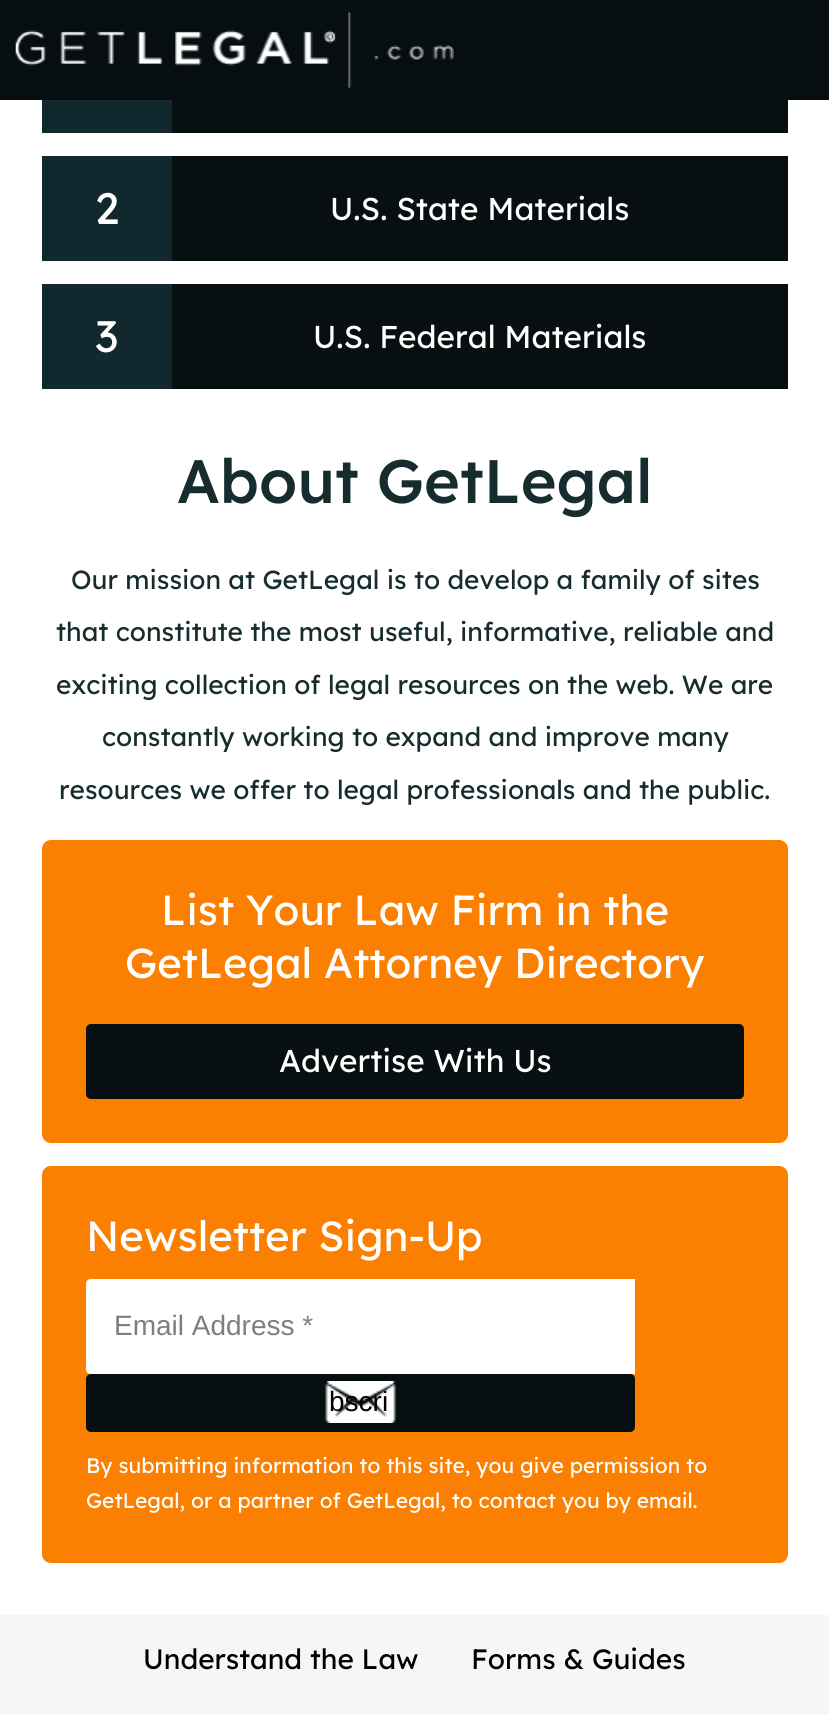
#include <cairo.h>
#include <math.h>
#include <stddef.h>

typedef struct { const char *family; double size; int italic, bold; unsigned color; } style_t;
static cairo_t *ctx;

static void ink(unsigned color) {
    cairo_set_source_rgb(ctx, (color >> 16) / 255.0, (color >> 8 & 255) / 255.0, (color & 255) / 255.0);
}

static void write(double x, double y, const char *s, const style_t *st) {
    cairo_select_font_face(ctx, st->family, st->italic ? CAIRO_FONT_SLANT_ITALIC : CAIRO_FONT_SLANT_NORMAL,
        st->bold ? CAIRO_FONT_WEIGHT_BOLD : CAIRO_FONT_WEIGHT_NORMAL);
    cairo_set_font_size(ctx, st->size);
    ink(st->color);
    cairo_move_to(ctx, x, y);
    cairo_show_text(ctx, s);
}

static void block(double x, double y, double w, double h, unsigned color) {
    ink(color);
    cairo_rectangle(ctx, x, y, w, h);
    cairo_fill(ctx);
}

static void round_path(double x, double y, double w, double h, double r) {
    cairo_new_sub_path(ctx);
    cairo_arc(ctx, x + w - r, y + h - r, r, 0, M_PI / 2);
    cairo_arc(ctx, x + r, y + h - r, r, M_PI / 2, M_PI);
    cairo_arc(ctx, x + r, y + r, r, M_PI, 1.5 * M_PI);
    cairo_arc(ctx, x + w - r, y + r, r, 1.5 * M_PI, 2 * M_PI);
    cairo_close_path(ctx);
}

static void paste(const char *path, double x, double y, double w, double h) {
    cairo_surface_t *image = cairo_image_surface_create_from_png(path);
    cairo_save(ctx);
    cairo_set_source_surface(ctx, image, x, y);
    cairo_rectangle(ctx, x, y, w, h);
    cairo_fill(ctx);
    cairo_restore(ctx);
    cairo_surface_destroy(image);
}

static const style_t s1 = {"Lexend", 44, 0, 0, 0xffffff};
static const style_t s2 = {"Lexend", 31.5, 0, 0, 0xffffff};
static const style_t s3 = {"Lexend Medium", 61.25, 0, 0, 0x172d2d};
static const style_t s4 = {"Lexend", 26.25, 0, 0, 0x172d2d};
static const style_t s5 = {"Lexend", 42, 0, 0, 0xffffff};
static const style_t s6 = {"Liberation Sans", 28, 0, 0, 0x7e7e7e};
static const style_t s7 = {"Liberation Sans", 28, 0, 0, 0x000000};
static const style_t s8 = {"Lexend", 21, 0, 0, 0xffffff};
static const style_t s9 = {"Lexend", 28, 0, 0, 0x000000};

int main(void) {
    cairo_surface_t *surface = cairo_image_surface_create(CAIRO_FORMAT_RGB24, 829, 1714);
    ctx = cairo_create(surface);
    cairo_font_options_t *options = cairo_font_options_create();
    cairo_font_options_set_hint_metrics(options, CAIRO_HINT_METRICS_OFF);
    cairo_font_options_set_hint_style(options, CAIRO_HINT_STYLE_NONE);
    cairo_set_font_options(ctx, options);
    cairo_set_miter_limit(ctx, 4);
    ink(0xffffff);
    cairo_paint(ctx);
    block(0, 0, 829, 100, 0x060e11);
    paste("pic1.png", 15, 12, 439, 76);
    block(172, 100, 616, 33, 0x070f11);
    block(42, 100, 130, 33, 0x10282e);
    block(172, 156, 616, 105, 0x070f11);
    block(42, 156, 130, 105, 0x10282e);
    write(95, 224, "2", &s1);
    write(330, 220, "U.S. State Materials", &s2);
    block(172, 284, 616, 105, 0x070f11);
    block(42, 284, 130, 105, 0x10282e);
    write(95, 352, "3", &s1);
    write(313, 348, "U.S. Federal Materials", &s2);
    write(177, 503, "About GetLegal", &s3);
    write(71, 589, "Our mission at GetLegal is to develop a family of sites", &s4);
    write(56, 641, "that constitute the most useful, informative, reliable and", &s4);
    write(56, 694, "exciting collection of legal resources on the web. We are", &s4);
    write(102, 746, "constantly working to expand and improve many", &s4);
    write(59, 799, "resources we offer to legal professionals and the public.", &s4);
    ink(0xfb7f00);
    round_path(42, 840, 746, 303, 9);
    cairo_fill(ctx);
    write(161, 925, "List Your Law Firm in the", &s5);
    write(125, 978, "GetLegal Attorney Directory", &s5);
    ink(0x070f11);
    round_path(86, 1024, 658, 75, 5);
    cairo_fill(ctx);
    write(279, 1072, "Advertise With Us", &s2);
    ink(0xfb7f00);
    round_path(42, 1166, 746, 397, 9);
    cairo_fill(ctx);
    write(86, 1251, "Newsletter Sign-Up", &s5);
    cairo_new_path(ctx);
    cairo_move_to(ctx, 91, 1279);
    cairo_line_to(ctx, 635, 1279);
    cairo_line_to(ctx, 635, 1374);
    cairo_line_to(ctx, 91, 1374);
    cairo_curve_to(ctx, 88, 1374, 86, 1372, 86, 1369);
    cairo_line_to(ctx, 86, 1284);
    cairo_curve_to(ctx, 86, 1281, 88, 1279, 91, 1279);
    cairo_close_path(ctx);
    cairo_fill(ctx);
    write(114, 1335, "Email Address *", &s6);
    ink(0x070f11);
    round_path(86, 1374, 549, 58, 5);
    cairo_fill(ctx);
    paste("pic2.png", 325, 1381, 71, 42);
    write(329, 1411, "bscri", &s7);
    write(86, 1473, "By submitting information to this site, you give permission to", &s8);
    write(86, 1508, "GetLegal, or a partner of GetLegal, to contact you by email.", &s8);
    block(0, 1615, 829, 99, 0xf6f6f6);
    write(143, 1669, "Understand the Law", &s9);
    write(471, 1669, "Forms & Guides", &s9);
    cairo_surface_write_to_png(surface, "screenshot.png");
    cairo_font_options_destroy(options);
    cairo_destroy(ctx);
    cairo_surface_destroy(surface);
    return 0;
}
